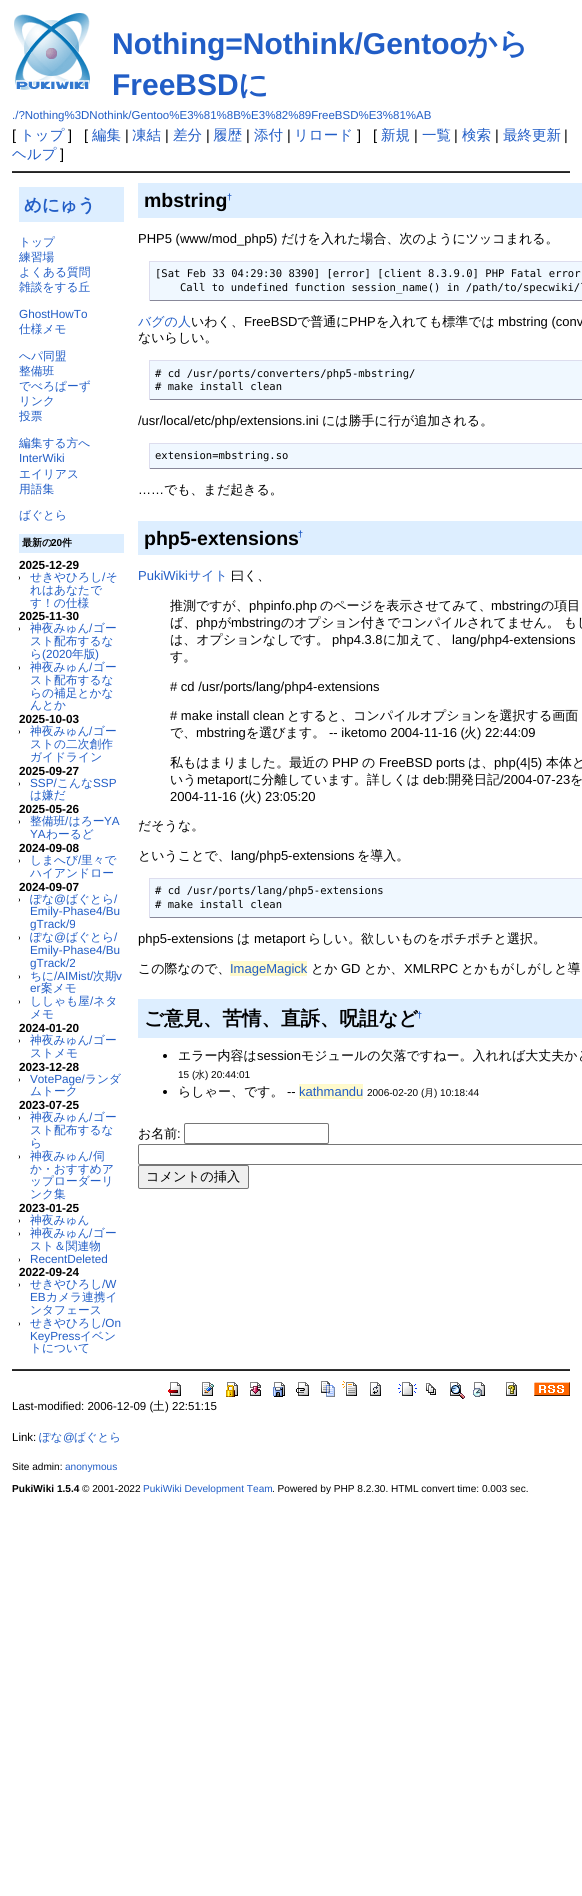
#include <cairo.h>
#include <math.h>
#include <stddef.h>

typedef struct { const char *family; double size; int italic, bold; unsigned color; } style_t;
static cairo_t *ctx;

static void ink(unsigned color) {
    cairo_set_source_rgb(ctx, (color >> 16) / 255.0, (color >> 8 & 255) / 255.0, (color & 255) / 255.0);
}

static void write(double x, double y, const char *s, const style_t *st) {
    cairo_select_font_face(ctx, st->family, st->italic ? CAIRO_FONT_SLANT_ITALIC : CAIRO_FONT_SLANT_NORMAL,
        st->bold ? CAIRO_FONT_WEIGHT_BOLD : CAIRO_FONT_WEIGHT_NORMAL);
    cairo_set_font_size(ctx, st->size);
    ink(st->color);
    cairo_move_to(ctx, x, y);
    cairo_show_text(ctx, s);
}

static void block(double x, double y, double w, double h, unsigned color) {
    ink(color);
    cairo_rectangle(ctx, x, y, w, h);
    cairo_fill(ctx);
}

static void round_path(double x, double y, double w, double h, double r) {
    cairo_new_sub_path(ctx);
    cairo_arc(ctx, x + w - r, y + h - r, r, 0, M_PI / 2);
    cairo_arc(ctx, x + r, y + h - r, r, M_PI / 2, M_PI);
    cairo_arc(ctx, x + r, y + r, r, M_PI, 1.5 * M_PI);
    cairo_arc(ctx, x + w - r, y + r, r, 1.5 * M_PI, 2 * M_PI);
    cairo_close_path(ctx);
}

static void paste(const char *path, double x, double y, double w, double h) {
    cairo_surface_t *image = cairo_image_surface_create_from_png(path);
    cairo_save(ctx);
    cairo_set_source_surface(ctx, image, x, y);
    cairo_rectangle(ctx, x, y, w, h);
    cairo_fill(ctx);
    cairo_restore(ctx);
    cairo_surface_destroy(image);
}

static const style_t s1 = {"Liberation Sans", 30, 0, 1, 0x215dc6};
static const style_t s2 = {"WenQuanYi Zen Hei", 30, 0, 1, 0x215dc6};
static const style_t s3 = {"Liberation Sans", 11.5, 0, 0, 0x215dc6};
static const style_t s4 = {"Liberation Sans", 14.5, 0, 0, 0x000000};
static const style_t s5 = {"WenQuanYi Zen Hei Medium", 14.5, 0, 0, 0x215dc6};
static const style_t s6 = {"WenQuanYi Zen Hei", 17.5, 0, 1, 0x215dc6};
static const style_t s7 = {"WenQuanYi Zen Hei Medium", 11.75, 0, 0, 0x215dc6};
static const style_t s8 = {"Liberation Sans", 11.75, 0, 0, 0x215dc6};
static const style_t s9 = {"WenQuanYi Zen Hei", 10, 0, 1, 0x000000};
static const style_t s10 = {"Liberation Sans", 10, 0, 1, 0x000000};
static const style_t s11 = {"Liberation Sans", 11.75, 0, 1, 0x000000};
static const style_t s12 = {"Liberation Sans", 19.5, 0, 1, 0x000000};
static const style_t s13 = {"Liberation Sans", 9, 0, 1, 0x215dc6};
static const style_t s14 = {"Liberation Sans", 13, 0, 0, 0x000000};
static const style_t s15 = {"WenQuanYi Zen Hei Medium", 13, 0, 0, 0x000000};
static const style_t s16 = {"DejaVu Sans Mono", 10.55, 0, 0, 0x000000};
static const style_t s17 = {"WenQuanYi Zen Hei Medium", 13, 0, 0, 0x215dc6};
static const style_t s18 = {"Liberation Sans", 13, 0, 0, 0x215dc6};
static const style_t s19 = {"WenQuanYi Zen Hei", 19.5, 0, 1, 0x000000};
static const style_t s20 = {"Liberation Sans", 10, 0, 0, 0x000000};
static const style_t s21 = {"WenQuanYi Zen Hei Medium", 10, 0, 0, 0x000000};
static const style_t s22 = {"WenQuanYi Zen Hei Medium", 13.25, 0, 0, 0x000000};
static const style_t s23 = {"Liberation Sans", 11.5, 0, 0, 0x000000};
static const style_t s24 = {"WenQuanYi Zen Hei Medium", 11.5, 0, 0, 0x000000};
static const style_t s25 = {"WenQuanYi Zen Hei Medium", 11.5, 0, 0, 0x215dc6};
static const style_t s26 = {"Liberation Sans", 10.1, 0, 0, 0x000000};
static const style_t s27 = {"Liberation Sans", 10.1, 0, 0, 0x215dc6};
static const style_t s28 = {"Liberation Sans", 10.1, 0, 1, 0x000000};

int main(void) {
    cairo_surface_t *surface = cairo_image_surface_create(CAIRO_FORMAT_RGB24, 582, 1896);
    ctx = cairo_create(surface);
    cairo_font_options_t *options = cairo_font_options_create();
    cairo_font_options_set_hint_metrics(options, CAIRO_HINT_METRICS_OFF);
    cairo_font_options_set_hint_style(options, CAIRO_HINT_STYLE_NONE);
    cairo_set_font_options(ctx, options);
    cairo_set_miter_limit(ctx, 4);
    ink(0xffffff);
    cairo_paint(ctx);
    paste("pic1.png", 14, 13, 76, 77);
    write(112, 54, "Nothing=Nothink/Gentoo", &s1);
    write(467, 54, "から", &s2);
    write(112, 95, "FreeBSD", &s1);
    write(238, 95, "に", &s2);
    write(12, 119, "./?Nothing%3DNothink/Gentoo%E3%81%8B%E3%82%89FreeBSD%E3%81%AB", &s3);
    write(12, 140, "[", &s4);
    write(20, 140, "トップ", &s5);
    write(68, 140, "]", &s4);
    write(84, 140, "[", &s4);
    write(92, 140, "編集", &s5);
    write(125, 140, "|", &s4);
    write(132, 140, "凍結", &s5);
    write(165, 140, "|", &s4);
    write(173, 140, "差分", &s5);
    write(206, 140, "|", &s4);
    write(213, 140, "履歴", &s5);
    write(246, 140, "|", &s4);
    write(254, 140, "添付", &s5);
    write(287, 140, "|", &s4);
    write(294, 140, "リロード", &s5);
    write(357, 140, "]", &s4);
    write(373, 140, "[", &s4);
    write(381, 140, "新規", &s5);
    write(414, 140, "|", &s4);
    write(422, 140, "一覧", &s5);
    write(454, 140, "|", &s4);
    write(462, 140, "検索", &s5);
    write(495, 140, "|", &s4);
    write(503, 140, "最終更新", &s5);
    write(564, 140, "|", &s4);
    write(12, 159, "ヘルプ", &s5);
    write(60, 159, "]", &s4);
    block(12, 171, 558, 1, 0x333333);
    block(12, 172, 558, 1, 0x222222);
    block(19, 187, 105, 35, 0xddeeff);
    write(24, 211, "めにゅう", &s6);
    write(19, 246, "トップ", &s7);
    write(19, 261, "練習場", &s7);
    write(19, 276, "よくある質問", &s7);
    write(19, 291, "雑談をする丘", &s7);
    write(19, 318, "GhostHowTo", &s8);
    write(19, 333, "仕様メモ", &s7);
    write(19, 360, "へパ同盟", &s7);
    write(19, 375, "整備班", &s7);
    write(19, 390, "でべろぱーず", &s7);
    write(19, 405, "リンク", &s7);
    write(19, 420, "投票", &s7);
    write(19, 447, "編集する方へ", &s7);
    write(19, 462, "InterWiki", &s8);
    write(19, 478, "エイリアス", &s7);
    write(19, 493, "用語集", &s7);
    write(19, 519, "ばぐとら", &s7);
    block(19, 534, 105, 19, 0xddeeff);
    write(22, 546, "最新の", &s9);
    write(51, 546, "20", &s10);
    write(62, 546, "件", &s9);
    write(19, 569, "2025-12-29", &s11);
    write(30, 581, "せきやひろし そ", &s7);
    ink(0x000000);
    cairo_new_path(ctx);
    cairo_move_to(ctx, 19, 576);
    cairo_line_to(ctx, 18, 576);
    cairo_curve_to(ctx, 19, 576, 20, 577, 20, 578);
    cairo_curve_to(ctx, 20, 579, 19, 580, 18, 580);
    cairo_line_to(ctx, 19, 580);
    cairo_close_path(ctx);
    cairo_fill(ctx);
    write(102, 581, "/", &s8);
    write(30, 594, "れはあなたで", &s7);
    write(30, 607, "す！の仕様", &s7);
    write(19, 620, "2025-11-30", &s11);
    write(30, 632, "神夜みゅん ゴー", &s7);
    ink(0x000000);
    cairo_new_path(ctx);
    cairo_move_to(ctx, 19, 627);
    cairo_line_to(ctx, 18, 627);
    cairo_curve_to(ctx, 19, 627, 20, 628, 20, 629);
    cairo_curve_to(ctx, 20, 630, 19, 631, 18, 631);
    cairo_line_to(ctx, 19, 631);
    cairo_close_path(ctx);
    cairo_fill(ctx);
    write(89, 632, "/", &s8);
    write(30, 645, "スト配布するな", &s7);
    write(30, 658, "ら", &s7);
    write(42, 658, "(2020", &s8);
    write(72, 658, "年版", &s7);
    write(95, 658, ")", &s8);
    write(30, 671, "神夜みゅん ゴー", &s7);
    ink(0x000000);
    cairo_new_path(ctx);
    cairo_move_to(ctx, 19, 666);
    cairo_line_to(ctx, 18, 666);
    cairo_curve_to(ctx, 19, 666, 20, 667, 20, 668);
    cairo_curve_to(ctx, 20, 669, 19, 670, 18, 670);
    cairo_line_to(ctx, 19, 670);
    cairo_close_path(ctx);
    cairo_fill(ctx);
    write(89, 671, "/", &s8);
    write(30, 684, "スト配布するな", &s7);
    write(30, 697, "らの補足とかな", &s7);
    write(30, 709, "んとか", &s7);
    write(19, 723, "2025-10-03", &s11);
    write(30, 735, "神夜みゅん ゴー", &s7);
    ink(0x000000);
    cairo_new_path(ctx);
    cairo_move_to(ctx, 19, 730);
    cairo_line_to(ctx, 18, 730);
    cairo_curve_to(ctx, 19, 730, 20, 731, 20, 732);
    cairo_curve_to(ctx, 20, 733, 19, 734, 18, 734);
    cairo_line_to(ctx, 19, 734);
    cairo_close_path(ctx);
    cairo_fill(ctx);
    write(89, 735, "/", &s8);
    write(30, 748, "ストの二次創作", &s7);
    write(30, 761, "ガイドライン", &s7);
    write(19, 775, "2025-09-27", &s11);
    cairo_new_path(ctx);
    cairo_move_to(ctx, 19, 782);
    cairo_line_to(ctx, 18, 782);
    cairo_curve_to(ctx, 19, 782, 20, 783, 20, 784);
    cairo_curve_to(ctx, 20, 785, 19, 786, 18, 786);
    cairo_line_to(ctx, 19, 786);
    cairo_close_path(ctx);
    cairo_fill(ctx);
    write(30, 787, "SSP/", &s8);
    write(57, 787, "こんな", &s7);
    write(93, 787, "SSP", &s8);
    write(30, 799, "は嫌だ", &s7);
    write(19, 813, "2025-05-26", &s11);
    write(30, 825, "整備班 はろー", &s7);
    ink(0x000000);
    cairo_new_path(ctx);
    cairo_move_to(ctx, 19, 820);
    cairo_line_to(ctx, 18, 820);
    cairo_curve_to(ctx, 19, 820, 20, 821, 20, 822);
    cairo_curve_to(ctx, 20, 823, 19, 824, 18, 824);
    cairo_line_to(ctx, 19, 824);
    cairo_close_path(ctx);
    cairo_fill(ctx);
    write(65, 825, "/", &s8);
    write(104, 825, "YA", &s8);
    write(30, 838, "YA", &s8);
    write(46, 838, "わーるど", &s7);
    write(19, 852, "2024-09-08", &s11);
    cairo_new_path(ctx);
    cairo_move_to(ctx, 19, 859);
    cairo_line_to(ctx, 18, 859);
    cairo_curve_to(ctx, 19, 859, 20, 860, 20, 861);
    cairo_curve_to(ctx, 20, 862, 19, 863, 18, 863);
    cairo_line_to(ctx, 19, 863);
    cairo_close_path(ctx);
    cairo_fill(ctx);
    write(30, 864, "しまへび", &s7);
    write(78, 864, "/", &s8);
    write(81, 864, "里々で", &s7);
    write(30, 877, "ハイアンドロー", &s7);
    write(19, 891, "2024-09-07", &s11);
    cairo_new_path(ctx);
    cairo_move_to(ctx, 19, 898);
    cairo_line_to(ctx, 18, 898);
    cairo_curve_to(ctx, 19, 898, 20, 899, 20, 900);
    cairo_curve_to(ctx, 20, 901, 19, 902, 18, 902);
    cairo_line_to(ctx, 19, 902);
    cairo_close_path(ctx);
    cairo_fill(ctx);
    write(30, 903, "ぽな", &s7);
    write(54, 903, "@", &s8);
    write(66, 903, "ばぐとら", &s7);
    write(114, 903, "/", &s8);
    write(30, 915, "Emily-Phase4/Bu", &s8);
    write(30, 928, "gTrack/9", &s8);
    ink(0x000000);
    cairo_new_path(ctx);
    cairo_move_to(ctx, 19, 936);
    cairo_line_to(ctx, 18, 936);
    cairo_curve_to(ctx, 19, 936, 20, 937, 20, 938);
    cairo_curve_to(ctx, 20, 939, 19, 940, 18, 940);
    cairo_line_to(ctx, 19, 940);
    cairo_close_path(ctx);
    cairo_fill(ctx);
    write(30, 941, "ぽな", &s7);
    write(54, 941, "@", &s8);
    write(66, 941, "ばぐとら", &s7);
    write(114, 941, "/", &s8);
    write(30, 954, "Emily-Phase4/Bu", &s8);
    write(30, 967, "gTrack/2", &s8);
    ink(0x000000);
    cairo_new_path(ctx);
    cairo_move_to(ctx, 19, 975);
    cairo_line_to(ctx, 18, 975);
    cairo_curve_to(ctx, 19, 975, 20, 976, 20, 977);
    cairo_curve_to(ctx, 20, 978, 19, 979, 18, 979);
    cairo_line_to(ctx, 19, 979);
    cairo_close_path(ctx);
    cairo_fill(ctx);
    write(30, 980, "ちに", &s7);
    write(54, 980, "/AIMist/", &s8);
    write(93, 980, "次期", &s7);
    write(116, 980, "v", &s8);
    write(30, 992, "er", &s8);
    write(41, 992, "案メモ", &s7);
    write(30, 1005, "ししゃも屋 ネタ", &s7);
    ink(0x000000);
    cairo_new_path(ctx);
    cairo_move_to(ctx, 19, 1000);
    cairo_line_to(ctx, 18, 1000);
    cairo_curve_to(ctx, 19, 1000, 20, 1001, 20, 1002);
    cairo_curve_to(ctx, 20, 1003, 19, 1004, 18, 1004);
    cairo_line_to(ctx, 19, 1004);
    cairo_close_path(ctx);
    cairo_fill(ctx);
    write(90, 1005, "/", &s8);
    write(30, 1018, "メモ", &s7);
    write(19, 1032, "2024-01-20", &s11);
    write(30, 1044, "神夜みゅん ゴー", &s7);
    ink(0x000000);
    cairo_new_path(ctx);
    cairo_move_to(ctx, 19, 1039);
    cairo_line_to(ctx, 18, 1039);
    cairo_curve_to(ctx, 19, 1039, 20, 1040, 20, 1041);
    cairo_curve_to(ctx, 20, 1042, 19, 1043, 18, 1043);
    cairo_line_to(ctx, 19, 1043);
    cairo_close_path(ctx);
    cairo_fill(ctx);
    write(89, 1044, "/", &s8);
    write(30, 1057, "ストメモ", &s7);
    write(19, 1071, "2023-12-28", &s11);
    cairo_new_path(ctx);
    cairo_move_to(ctx, 19, 1078);
    cairo_line_to(ctx, 18, 1078);
    cairo_curve_to(ctx, 19, 1078, 20, 1079, 20, 1080);
    cairo_curve_to(ctx, 20, 1081, 19, 1082, 18, 1082);
    cairo_line_to(ctx, 19, 1082);
    cairo_close_path(ctx);
    cairo_fill(ctx);
    write(30, 1083, "VotePage/", &s8);
    write(85, 1083, "ランダ", &s7);
    write(30, 1095, "ムトーク", &s7);
    write(19, 1109, "2023-07-25", &s11);
    write(30, 1121, "神夜みゅん ゴー", &s7);
    ink(0x000000);
    cairo_new_path(ctx);
    cairo_move_to(ctx, 19, 1116);
    cairo_line_to(ctx, 18, 1116);
    cairo_curve_to(ctx, 19, 1116, 20, 1117, 20, 1118);
    cairo_curve_to(ctx, 20, 1119, 19, 1120, 18, 1120);
    cairo_line_to(ctx, 19, 1120);
    cairo_close_path(ctx);
    cairo_fill(ctx);
    write(89, 1121, "/", &s8);
    write(30, 1134, "スト配布するな", &s7);
    write(30, 1147, "ら", &s7);
    ink(0x000000);
    cairo_new_path(ctx);
    cairo_move_to(ctx, 19, 1155);
    cairo_line_to(ctx, 18, 1155);
    cairo_curve_to(ctx, 19, 1155, 20, 1156, 20, 1157);
    cairo_curve_to(ctx, 20, 1158, 19, 1159, 18, 1159);
    cairo_line_to(ctx, 19, 1159);
    cairo_close_path(ctx);
    cairo_fill(ctx);
    write(30, 1160, "神夜みゅん", &s7);
    write(89, 1160, "/", &s8);
    write(93, 1160, "伺", &s7);
    write(30, 1173, "か・おすすめア", &s7);
    write(30, 1185, "ップローダーリ", &s7);
    write(30, 1198, "ンク集", &s7);
    write(19, 1212, "2023-01-25", &s11);
    cairo_new_path(ctx);
    cairo_move_to(ctx, 19, 1219);
    cairo_line_to(ctx, 18, 1219);
    cairo_curve_to(ctx, 19, 1219, 20, 1220, 20, 1221);
    cairo_curve_to(ctx, 20, 1222, 19, 1223, 18, 1223);
    cairo_line_to(ctx, 19, 1223);
    cairo_close_path(ctx);
    cairo_fill(ctx);
    write(30, 1224, "神夜みゅん", &s7);
    write(30, 1237, "神夜みゅん ゴー", &s7);
    ink(0x000000);
    cairo_new_path(ctx);
    cairo_move_to(ctx, 19, 1232);
    cairo_line_to(ctx, 18, 1232);
    cairo_curve_to(ctx, 19, 1232, 20, 1233, 20, 1234);
    cairo_curve_to(ctx, 20, 1235, 19, 1236, 18, 1236);
    cairo_line_to(ctx, 19, 1236);
    cairo_close_path(ctx);
    cairo_fill(ctx);
    write(89, 1237, "/", &s8);
    write(30, 1250, "スト＆関連物", &s7);
    ink(0x000000);
    cairo_new_path(ctx);
    cairo_move_to(ctx, 19, 1258);
    cairo_line_to(ctx, 18, 1258);
    cairo_curve_to(ctx, 19, 1258, 20, 1259, 20, 1260);
    cairo_curve_to(ctx, 20, 1261, 19, 1262, 18, 1262);
    cairo_line_to(ctx, 19, 1262);
    cairo_close_path(ctx);
    cairo_fill(ctx);
    write(30, 1263, "RecentDeleted", &s8);
    write(19, 1276, "2022-09-24", &s11);
    cairo_new_path(ctx);
    cairo_move_to(ctx, 19, 1283);
    cairo_line_to(ctx, 18, 1283);
    cairo_curve_to(ctx, 19, 1283, 20, 1284, 20, 1285);
    cairo_curve_to(ctx, 20, 1286, 19, 1287, 18, 1287);
    cairo_line_to(ctx, 19, 1287);
    cairo_close_path(ctx);
    cairo_fill(ctx);
    write(30, 1288, "せきやひろし", &s7);
    write(102, 1288, "/W", &s8);
    write(30, 1301, "EB", &s8);
    write(46, 1301, "カメラ連携イ", &s7);
    write(30, 1314, "ンタフェース", &s7);
    ink(0x000000);
    cairo_new_path(ctx);
    cairo_move_to(ctx, 19, 1322);
    cairo_line_to(ctx, 18, 1322);
    cairo_curve_to(ctx, 19, 1322, 20, 1323, 20, 1324);
    cairo_curve_to(ctx, 20, 1325, 19, 1326, 18, 1326);
    cairo_line_to(ctx, 19, 1326);
    cairo_close_path(ctx);
    cairo_fill(ctx);
    write(30, 1327, "せきやひろし", &s7);
    write(102, 1327, "/On", &s8);
    write(30, 1340, "KeyPress", &s8);
    write(80, 1340, "イベン", &s7);
    write(30, 1352, "トについて", &s7);
    block(138, 183, 444, 35, 0xddeeff);
    write(144, 207, "mbstring", &s12);
    write(227, 200, "†", &s13);
    write(138, 243, "PHP5 (www/mod_php5)", &s14);
    write(281, 243, "だけを入れた場合、次のようにツッコまれる。", &s15);
    block(150, 262, 432, 38, 0xf0f8ff);
    block(149, 261, 433, 1, 0xddddee);
    block(149, 300, 433, 1, 0x888899);
    block(149, 261, 1, 40, 0xddddee);
    write(155, 277, "[Sat Feb 33 04:29:30 8390] [error] [client 8.3.9.0] PHP Fatal error", &s16);
    write(180, 291, "Call to undefined function session_name() in /path/to/specwiki/l", &s16);
    write(138, 326, "バグの人", &s17);
    write(191, 326, "いわく、", &s15);
    write(244, 326, "FreeBSD", &s14);
    write(297, 326, "で普通に", &s15);
    write(349, 326, "PHP", &s14);
    write(376, 326, "を入れても標準では", &s15);
    write(498, 326, "mbstring (conv", &s14);
    write(138, 342, "ないらしい。", &s15);
    block(150, 361, 432, 38, 0xf0f8ff);
    block(149, 360, 433, 1, 0xddddee);
    block(149, 399, 433, 1, 0x888899);
    block(149, 360, 1, 40, 0xddddee);
    write(155, 377, "# cd /usr/ports/converters/php5-mbstring/", &s16);
    write(155, 390, "# make install clean", &s16);
    write(138, 425, "/usr/local/etc/php/extensions.ini", &s14);
    write(322, 425, "には勝手に行が追加される。", &s15);
    block(150, 444, 432, 24, 0xf0f8ff);
    block(149, 443, 433, 1, 0xddddee);
    block(149, 468, 433, 1, 0x888899);
    block(149, 443, 1, 26, 0xddddee);
    write(155, 459, "extension=mbstring.so", &s16);
    write(138, 494, "……", &s14);
    write(164, 494, "でも、まだ起きる。", &s15);
    block(138, 521, 444, 34, 0xddeeff);
    write(144, 545, "php5-extensions", &s12);
    write(298, 537, "†", &s13);
    write(138, 580, "PukiWiki", &s18);
    write(188, 580, "サイト", &s17);
    write(231, 580, "曰く、", &s15);
    write(170, 610, "推測ですが、", &s15);
    write(249, 610, "phpinfo.php", &s14);
    write(320, 610, "のページを表示させてみて、", &s15);
    write(491, 610, "mbstring", &s14);
    write(541, 610, "の項目", &s15);
    write(170, 627, "ば、", &s15);
    write(196, 627, "php", &s14);
    write(218, 627, "が", &s15);
    write(231, 627, "mbstring", &s14);
    write(281, 627, "のオプション付きでコンパイルされてません。 もし", &s15);
    write(170, 644, "は、オプションなしです。", &s15);
    write(332, 644, "php4.3.8", &s14);
    write(383, 644, "に加えて、", &s15);
    write(452, 644, "lang/php4-extensions", &s14);
    write(170, 661, "す。", &s15);
    write(170, 691, "# cd /usr/ports/lang/php4-extensions", &s14);
    write(170, 720, "# make install clean", &s14);
    write(287, 720, "とすると、コンパイルオプションを選択する画面", &s15);
    write(170, 737, "で、", &s15);
    write(196, 737, "mbstring", &s14);
    write(246, 737, "を選びます。", &s15);
    write(329, 737, "-- iketomo 2004-11-16 (", &s14);
    write(464, 737, "火", &s15);
    write(477, 737, ") 22:44:09", &s14);
    write(170, 767, "私もはまりました。最近の", &s15);
    write(332, 767, "PHP", &s14);
    write(362, 767, "の", &s15);
    write(379, 767, "FreeBSD ports", &s14);
    write(468, 767, "は、", &s15);
    write(494, 767, "php(4|5)", &s14);
    write(546, 767, "本体と", &s15);
    write(170, 784, "いう", &s15);
    write(197, 784, "metaport", &s14);
    write(248, 784, "に分離しています。詳しくは", &s15);
    write(423, 784, "deb:", &s14);
    write(448, 784, "開発日記", &s15);
    write(500, 784, "/2004-07-23", &s14);
    write(570, 784, "を", &s15);
    write(170, 801, "2004-11-16 (", &s14);
    write(244, 801, "火", &s15);
    write(257, 801, ") 23:05:20", &s14);
    write(138, 830, "だそうな。", &s15);
    write(138, 860, "ということで、", &s15);
    write(231, 860, "lang/php5-extensions", &s14);
    write(357, 860, "を導入。", &s15);
    block(150, 879, 432, 38, 0xf0f8ff);
    block(149, 878, 433, 1, 0xddddee);
    block(149, 917, 433, 1, 0x888899);
    block(149, 878, 1, 40, 0xddddee);
    write(155, 894, "# cd /usr/ports/lang/php5-extensions", &s16);
    write(155, 908, "# make install clean", &s16);
    write(138, 943, "php5-extensions", &s14);
    write(237, 943, "は", &s15);
    write(254, 943, "metaport", &s14);
    write(308, 943, "らしい。欲しいものをポチポチと選択。", &s15);
    write(138, 973, "この際なので、", &s15);
    block(230, 961, 77, 15, 0xfffacc);
    write(230, 973, "ImageMagick", &s18);
    write(311, 973, "とか", &s15);
    write(341, 973, "GD", &s14);
    write(364, 973, "とか、", &s15);
    write(404, 973, "XMLRPC", &s14);
    write(461, 973, "とかもがしがしと導", &s15);
    block(138, 999, 444, 39, 0xddeeff);
    write(144, 1025, "ご意見、苦情、直訴、呪詛など", &s19);
    write(417, 1018, "†", &s13);
    ink(0x000000);
    cairo_new_path(ctx);
    cairo_arc(ctx, 165, 1056, 2, 0, 2 * M_PI);
    cairo_fill(ctx);
    write(178, 1060, "エラー内容は", &s15);
    write(257, 1060, "session", &s14);
    write(301, 1060, "モジュールの欠落ですねー。入れれば大丈夫かと", &s15);
    write(178, 1078, "15 (", &s20);
    write(195, 1078, "水", &s21);
    write(205, 1078, ") 20:44:01", &s20);
    cairo_new_path(ctx);
    cairo_arc(ctx, 165, 1092, 2, 0, 2 * M_PI);
    cairo_fill(ctx);
    write(178, 1096, "らしゃー、です。", &s15);
    write(287, 1096, "--", &s14);
    block(299, 1084, 64, 15, 0xfffacc);
    write(299, 1096, "kathmandu", &s18);
    write(367, 1096, "2006-02-20 (", &s20);
    write(424, 1096, "月", &s21);
    write(434, 1096, ") 10:18:44", &s20);
    write(138, 1138, "お名前", &s15);
    write(177, 1138, ":", &s14);
    round_path(184.5, 1123.5, 144, 20, 1.5);
    ink(0x767676);
    cairo_set_line_width(ctx, 1);
    cairo_stroke(ctx);
    round_path(138.5, 1144.5, 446, 20, 1.5);
    cairo_stroke(ctx);
    ink(0xefefef);
    round_path(138.5, 1165.5, 110, 23, 1.5);
    cairo_fill_preserve(ctx);
    ink(0x767676);
    cairo_stroke(ctx);
    write(146, 1181, "コメントの挿入", &s22);
    block(12, 1369, 558, 1, 0x333333);
    block(12, 1370, 558, 1, 0x222222);
    paste("pic2.png", 168, 1382, 13, 14);
    paste("pic3.png", 202, 1382, 12, 14);
    paste("pic4.png", 226, 1382, 12, 15);
    paste("pic5.png", 250, 1382, 11, 14);
    paste("pic6.png", 273, 1382, 12, 15);
    paste("pic7.png", 296, 1382, 13, 14);
    paste("pic8.png", 321, 1381, 14, 16);
    paste("pic9.png", 342, 1381, 15, 15);
    paste("pic10.png", 370, 1382, 11, 14);
    paste("pic11.png", 398, 1382, 19, 14);
    paste("pic12.png", 426, 1383, 10, 12);
    paste("pic13.png", 450, 1382, 15, 17);
    paste("pic14.png", 473, 1382, 12, 15);
    paste("pic15.png", 506, 1382, 11, 14);
    paste("pic16.png", 534, 1382, 36, 14);
    write(12, 1410, "Last-modified: 2006-12-09 (", &s23);
    write(153, 1410, "土", &s24);
    write(165, 1410, ") 22:51:15", &s23);
    write(12, 1441, "Link:", &s23);
    write(39, 1441, "ぽな", &s25);
    write(63, 1441, "@", &s3);
    write(74, 1441, "ばぐとら", &s25);
    write(12, 1470, "Site admin:", &s26);
    write(65, 1470, "anonymous", &s27);
    write(12, 1492, "PukiWiki 1.5.4", &s28);
    write(82, 1492, "© 2001-2022", &s26);
    write(143, 1492, "PukiWiki Development Team", &s27);
    write(272, 1492, ". Powered by PHP 8.2.30. HTML convert time: 0.003 sec.", &s26);
    cairo_surface_write_to_png(surface, "screenshot.png");
    cairo_font_options_destroy(options);
    cairo_destroy(ctx);
    cairo_surface_destroy(surface);
    return 0;
}
